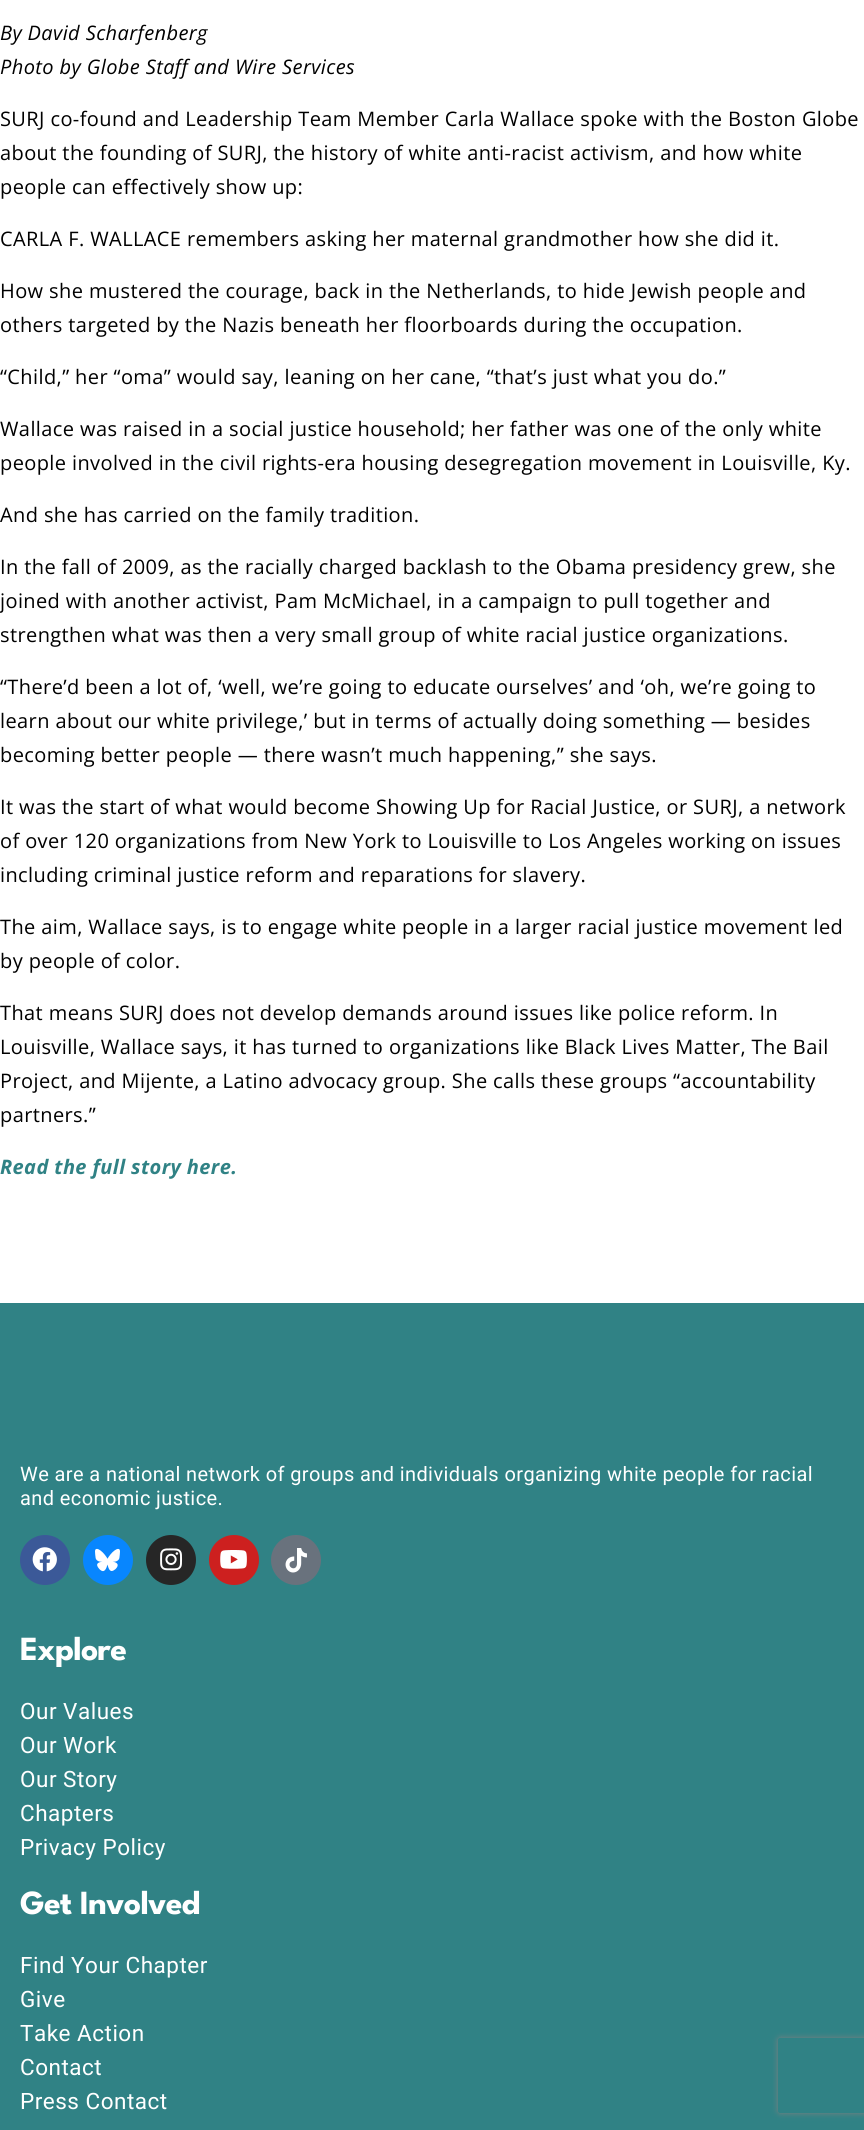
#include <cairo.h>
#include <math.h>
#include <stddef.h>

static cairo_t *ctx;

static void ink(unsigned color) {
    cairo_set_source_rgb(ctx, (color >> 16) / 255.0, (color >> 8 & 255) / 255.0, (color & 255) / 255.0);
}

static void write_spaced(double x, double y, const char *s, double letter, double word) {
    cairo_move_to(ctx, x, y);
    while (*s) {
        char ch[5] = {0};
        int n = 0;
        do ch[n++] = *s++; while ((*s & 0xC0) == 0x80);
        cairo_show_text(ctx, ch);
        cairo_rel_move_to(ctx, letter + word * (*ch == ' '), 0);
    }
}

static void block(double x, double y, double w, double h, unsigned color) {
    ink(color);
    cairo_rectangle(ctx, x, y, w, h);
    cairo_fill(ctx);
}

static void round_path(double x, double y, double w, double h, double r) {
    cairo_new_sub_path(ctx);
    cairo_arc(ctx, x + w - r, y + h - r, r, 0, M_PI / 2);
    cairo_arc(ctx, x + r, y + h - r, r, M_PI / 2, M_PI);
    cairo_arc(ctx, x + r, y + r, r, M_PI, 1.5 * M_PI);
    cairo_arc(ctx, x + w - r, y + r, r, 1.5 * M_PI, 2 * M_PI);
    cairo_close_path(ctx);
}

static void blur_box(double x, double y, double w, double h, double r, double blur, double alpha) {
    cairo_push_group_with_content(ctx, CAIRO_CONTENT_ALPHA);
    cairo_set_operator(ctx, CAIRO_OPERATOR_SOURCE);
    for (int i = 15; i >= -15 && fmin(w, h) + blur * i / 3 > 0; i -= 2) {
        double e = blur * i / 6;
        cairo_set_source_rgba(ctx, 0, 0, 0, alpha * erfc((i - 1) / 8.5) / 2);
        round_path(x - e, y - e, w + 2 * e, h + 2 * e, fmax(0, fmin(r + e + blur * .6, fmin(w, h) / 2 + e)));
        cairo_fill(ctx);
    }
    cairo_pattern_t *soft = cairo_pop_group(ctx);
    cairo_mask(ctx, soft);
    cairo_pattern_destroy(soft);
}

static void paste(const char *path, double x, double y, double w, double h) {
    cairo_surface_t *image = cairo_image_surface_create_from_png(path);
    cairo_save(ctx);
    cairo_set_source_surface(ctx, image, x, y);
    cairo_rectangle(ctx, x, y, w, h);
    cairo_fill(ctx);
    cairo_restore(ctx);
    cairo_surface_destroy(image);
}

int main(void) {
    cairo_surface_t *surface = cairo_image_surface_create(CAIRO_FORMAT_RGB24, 864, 2130);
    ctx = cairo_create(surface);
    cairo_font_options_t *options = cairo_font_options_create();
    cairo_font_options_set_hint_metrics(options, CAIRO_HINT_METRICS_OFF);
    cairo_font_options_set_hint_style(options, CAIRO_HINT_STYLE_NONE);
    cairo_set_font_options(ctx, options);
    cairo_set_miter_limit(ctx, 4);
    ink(0xffffff);
    cairo_paint(ctx);
    cairo_select_font_face(ctx, "Open Sans", CAIRO_FONT_SLANT_ITALIC, CAIRO_FONT_WEIGHT_NORMAL);
    cairo_set_font_size(ctx, 20);
    ink(0x000000);
    write_spaced(0, 40, "By David Scharfenberg", 0.4, 0);
    write_spaced(0, 74, "Photo by Globe Staff and Wire Services", 0.4, 0);
    cairo_select_font_face(ctx, "Open Sans", CAIRO_FONT_SLANT_NORMAL, CAIRO_FONT_WEIGHT_NORMAL);
    write_spaced(0, 126, "SURJ co-found and Leadership Team Member Carla Wallace spoke with the Boston Globe", 0.4, 0);
    write_spaced(0, 160, "about the founding of SURJ, the history of white anti-racist activism, and how white", 0.4, 0);
    write_spaced(0, 194, "people can effectively show up:", 0.4, 0);
    write_spaced(0, 246, "CARLA F. WALLACE remembers asking her maternal grandmother how she did it.", 0.4, 0);
    write_spaced(0, 298, "How she mustered the courage, back in the Netherlands, to hide Jewish people and", 0.4, 0);
    write_spaced(0, 332, "others targeted by the Nazis beneath her floorboards during the occupation.", 0.4, 0);
    write_spaced(0, 384, "“Child,” her “oma” would say, leaning on her cane, “that’s just what you do.”", 0.4, 0);
    write_spaced(0, 436, "Wallace was raised in a social justice household; her father was one of the only white", 0.4, 0);
    write_spaced(0, 470, "people involved in the civil rights-era housing desegregation movement in Louisville, Ky.", 0.4, 0);
    write_spaced(0, 522, "And she has carried on the family tradition.", 0.4, 0);
    write_spaced(0, 574, "In the fall of 2009, as the racially charged backlash to the Obama presidency grew, she", 0.4, 0);
    write_spaced(0, 608, "joined with another activist, Pam McMichael, in a campaign to pull together and", 0.4, 0);
    write_spaced(0, 642, "strengthen what was then a very small group of white racial justice organizations.", 0.4, 0);
    write_spaced(0, 694, "“There’d been a lot of, ‘well, we’re going to educate ourselves’ and ‘oh, we’re going to", 0.4, 0);
    write_spaced(0, 728, "learn about our white privilege,’ but in terms of actually doing something — besides", 0.4, 0);
    write_spaced(0, 762, "becoming better people — there wasn’t much happening,” she says.", 0.4, 0);
    write_spaced(0, 814, "It was the start of what would become Showing Up for Racial Justice, or SURJ, a network", 0.4, 0);
    write_spaced(0, 848, "of over 120 organizations from New York to Louisville to Los Angeles working on issues", 0.4, 0);
    write_spaced(0, 882, "including criminal justice reform and reparations for slavery.", 0.4, 0);
    write_spaced(0, 934, "The aim, Wallace says, is to engage white people in a larger racial justice movement led", 0.4, 0);
    write_spaced(0, 968, "by people of color.", 0.4, 0);
    write_spaced(0, 1020, "That means SURJ does not develop demands around issues like police reform. In", 0.4, 0);
    write_spaced(0, 1054, "Louisville, Wallace says, it has turned to organizations like Black Lives Matter, The Bail", 0.4, 0);
    write_spaced(0, 1088, "Project, and Mijente, a Latino advocacy group. She calls these groups “accountability", 0.4, 0);
    write_spaced(0, 1122, "partners.”", 0.4, 0);
    cairo_select_font_face(ctx, "Open Sans", CAIRO_FONT_SLANT_ITALIC, CAIRO_FONT_WEIGHT_BOLD);
    ink(0x308285);
    write_spaced(0, 1174, "Read the full story here.", 0.4, 0);
    block(0, 1303, 864, 827, 0x308285);
    cairo_select_font_face(ctx, "Roboto", CAIRO_FONT_SLANT_NORMAL, CAIRO_FONT_WEIGHT_NORMAL);
    ink(0xffffff);
    write_spaced(20, 1481, "We are a national network of groups and individuals organizing white people for racial", 0.4, 0);
    write_spaced(20, 1505, "and economic justice.", 0.4, 0);
    ink(0x3b5998);
    cairo_new_path(ctx);
    cairo_arc(ctx, 45, 1560, 25, 0, 2 * M_PI);
    cairo_fill(ctx);
    paste("pic1.png", 32, 1547, 25, 25);
    ink(0x0886fe);
    cairo_arc(ctx, 108, 1560, 25, 0, 2 * M_PI);
    cairo_fill(ctx);
    paste("pic2.png", 95, 1548, 25, 24);
    ink(0x262626);
    cairo_arc(ctx, 171, 1560, 25, 0, 2 * M_PI);
    cairo_fill(ctx);
    paste("pic3.png", 160, 1548, 23, 23);
    ink(0xcd201f);
    cairo_arc(ctx, 234, 1560, 25, 0, 2 * M_PI);
    cairo_fill(ctx);
    paste("pic4.png", 220, 1550, 27, 19);
    ink(0x69727d);
    cairo_arc(ctx, 296, 1560, 25, 0, 2 * M_PI);
    cairo_fill(ctx);
    paste("pic5.png", 285, 1548, 22, 25);
    cairo_select_font_face(ctx, "League Spartan", CAIRO_FONT_SLANT_NORMAL, CAIRO_FONT_WEIGHT_BOLD);
    cairo_set_font_size(ctx, 33.75);
    ink(0xffffff);
    write_spaced(20, 1660, "Explore", -0.75, 0);
    cairo_select_font_face(ctx, "Roboto", CAIRO_FONT_SLANT_NORMAL, CAIRO_FONT_WEIGHT_NORMAL);
    cairo_set_font_size(ctx, 22.5);
    write_spaced(20, 1719, "Our Values", 0.5, 0);
    write_spaced(20, 1753, "Our Work", 0.5, 0);
    write_spaced(20, 1787, "Our Story", 0.5, 0);
    write_spaced(20, 1821, "Chapters", 0.5, 0);
    write_spaced(20, 1855, "Privacy Policy", 0.5, 0);
    cairo_select_font_face(ctx, "League Spartan", CAIRO_FONT_SLANT_NORMAL, CAIRO_FONT_WEIGHT_BOLD);
    cairo_set_font_size(ctx, 33.75);
    write_spaced(20, 1914, "Get Involved", -0.75, 0);
    cairo_select_font_face(ctx, "Roboto", CAIRO_FONT_SLANT_NORMAL, CAIRO_FONT_WEIGHT_NORMAL);
    cairo_set_font_size(ctx, 22.5);
    write_spaced(20, 1973, "Find Your Chapter", 0.5, 0);
    write_spaced(20, 2007, "Give", 0.5, 0);
    write_spaced(20, 2041, "Take Action", 0.5, 0);
    write_spaced(20, 2075, "Contact", 0.5, 0);
    write_spaced(20, 2109, "Press Contact", 0.5, 0);
    cairo_save(ctx);
    cairo_set_fill_rule(ctx, CAIRO_FILL_RULE_EVEN_ODD);
    cairo_new_path(ctx);
    cairo_move_to(ctx, 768, 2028);
    cairo_line_to(ctx, 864, 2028);
    cairo_line_to(ctx, 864, 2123);
    cairo_line_to(ctx, 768, 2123);
    cairo_close_path(ctx);
    cairo_move_to(ctx, 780.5, 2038);
    cairo_line_to(ctx, 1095.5, 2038);
    cairo_curve_to(ctx, 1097, 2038, 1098, 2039, 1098, 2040.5);
    cairo_line_to(ctx, 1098, 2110.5);
    cairo_curve_to(ctx, 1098, 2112, 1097, 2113, 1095.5, 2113);
    cairo_line_to(ctx, 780.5, 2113);
    cairo_curve_to(ctx, 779, 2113, 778, 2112, 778, 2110.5);
    cairo_line_to(ctx, 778, 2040.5);
    cairo_curve_to(ctx, 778, 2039, 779, 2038, 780.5, 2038);
    cairo_close_path(ctx);
    cairo_clip(ctx);
    ink(0x808080);
    blur_box(778, 2038, 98, 75, 2.5, 3, 1);
    cairo_restore(ctx);
    cairo_surface_write_to_png(surface, "screenshot.png");
    cairo_font_options_destroy(options);
    cairo_destroy(ctx);
    cairo_surface_destroy(surface);
    return 0;
}
